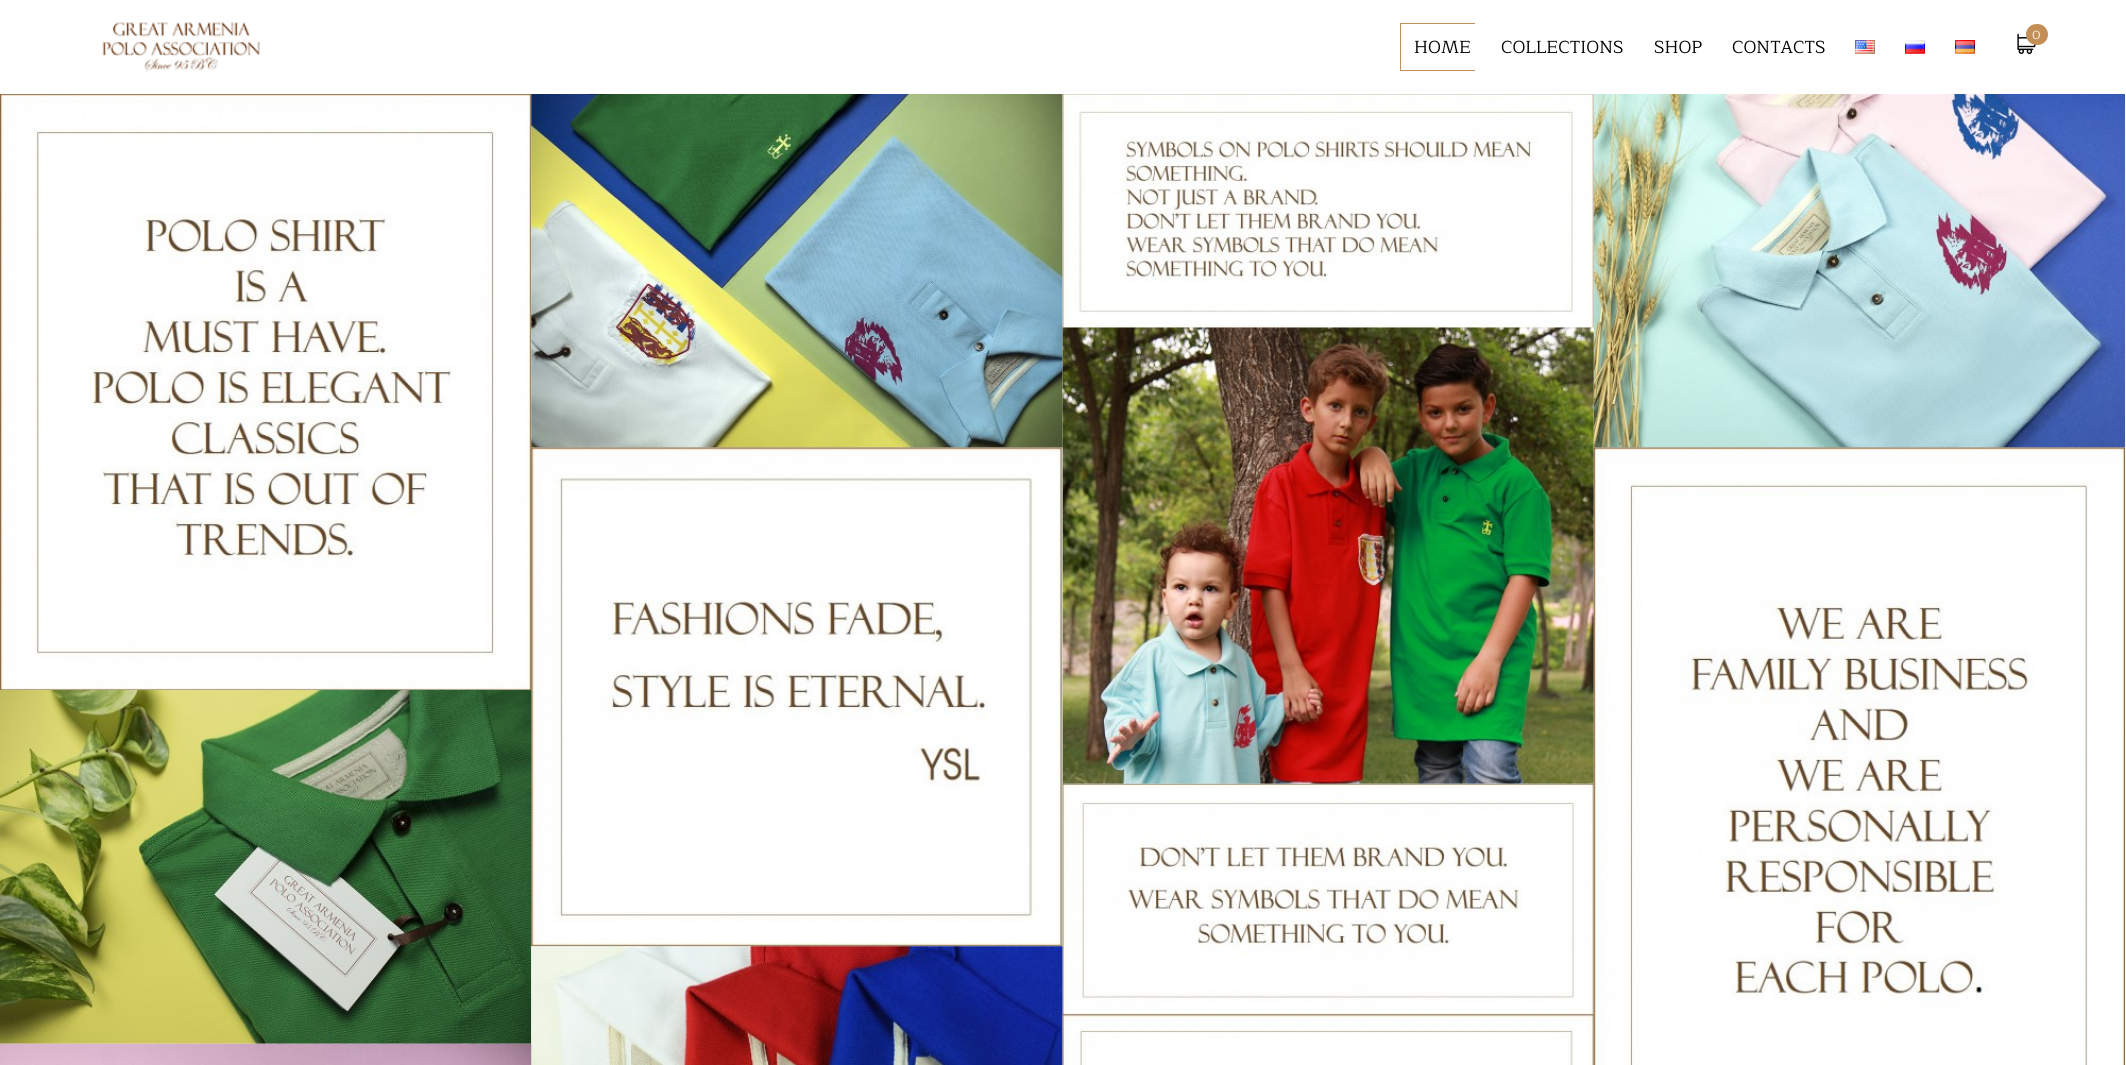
#include <cairo.h>
#include <math.h>
#include <stddef.h>

typedef struct { const char *family; double size; int italic, bold; unsigned color; } style_t;
static cairo_t *ctx;

static void ink(unsigned color) {
    cairo_set_source_rgb(ctx, (color >> 16) / 255.0, (color >> 8 & 255) / 255.0, (color & 255) / 255.0);
}

static void write(double x, double y, const char *s, const style_t *st) {
    cairo_select_font_face(ctx, st->family, st->italic ? CAIRO_FONT_SLANT_ITALIC : CAIRO_FONT_SLANT_NORMAL,
        st->bold ? CAIRO_FONT_WEIGHT_BOLD : CAIRO_FONT_WEIGHT_NORMAL);
    cairo_set_font_size(ctx, st->size);
    ink(st->color);
    cairo_move_to(ctx, x, y);
    cairo_show_text(ctx, s);
}

static void block(double x, double y, double w, double h, unsigned color) {
    ink(color);
    cairo_rectangle(ctx, x, y, w, h);
    cairo_fill(ctx);
}

static void round_path(double x, double y, double w, double h, double r) {
    cairo_new_sub_path(ctx);
    cairo_arc(ctx, x + w - r, y + h - r, r, 0, M_PI / 2);
    cairo_arc(ctx, x + r, y + h - r, r, M_PI / 2, M_PI);
    cairo_arc(ctx, x + r, y + r, r, M_PI, 1.5 * M_PI);
    cairo_arc(ctx, x + w - r, y + r, r, 1.5 * M_PI, 2 * M_PI);
    cairo_close_path(ctx);
}

static void paste(const char *path, double x, double y, double w, double h) {
    cairo_surface_t *image = cairo_image_surface_create_from_png(path);
    cairo_save(ctx);
    cairo_set_source_surface(ctx, image, x, y);
    cairo_rectangle(ctx, x, y, w, h);
    cairo_fill(ctx);
    cairo_restore(ctx);
    cairo_surface_destroy(image);
}

static const style_t s1 = {"Maitree", 12, 0, 0, 0xffffff};
static const style_t s2 = {"Maitree", 17.5, 0, 0, 0x000000};

int main(void) {
    cairo_surface_t *surface = cairo_image_surface_create(CAIRO_FORMAT_RGB24, 2126, 1065);
    ctx = cairo_create(surface);
    cairo_font_options_t *options = cairo_font_options_create();
    cairo_font_options_set_hint_metrics(options, CAIRO_HINT_METRICS_OFF);
    cairo_font_options_set_hint_style(options, CAIRO_HINT_STYLE_NONE);
    cairo_set_font_options(ctx, options);
    cairo_set_miter_limit(ctx, 4);
    ink(0xffffff);
    cairo_paint(ctx);
    paste("pic1.png", 102, 22, 158, 50);
    paste("pic2.png", 2017, 33, 19, 21);
    ink(0xc48f56);
    round_path(2026, 24, 22, 21, 10.5);
    cairo_fill(ctx);
    write(2032, 39, "0", &s1);
    write(1414, 53, "HOME", &s2);
    block(1400, 23, 75, 1, 0xc48f56);
    block(1400, 70, 75, 1, 0xc48f56);
    block(1400, 23, 1, 48, 0xc48f56);
    write(1501, 53, "COLLECTIONS", &s2);
    write(1654, 53, "SHOP", &s2);
    write(1732, 53, "CONTACTS", &s2);
    paste("pic3.png", 1855, 40, 20, 14);
    paste("pic4.png", 1905, 40, 20, 14);
    paste("pic5.png", 1955, 40, 20, 14);
    paste("pic6.png", 0, 94, 532, 596);
    paste("pic7.png", 531, 94, 532, 354);
    paste("pic8.png", 1062, 94, 532, 235);
    paste("pic9.png", 1593, 94, 532, 354);
    paste("pic12.png", 1062, 327, 532, 457);
    paste("pic11.png", 531, 447, 532, 500);
    paste("pic10.png", 0, 690, 532, 354);
    paste("pic13.png", 1593, 447, 532, 618);
    paste("pic15.png", 1062, 783, 532, 232);
    paste("pic14.png", 531, 946, 532, 119);
    paste("pic16.png", 0, 1043, 532, 22);
    paste("pic17.png", 1062, 1015, 532, 50);
    cairo_surface_write_to_png(surface, "screenshot.png");
    cairo_font_options_destroy(options);
    cairo_destroy(ctx);
    cairo_surface_destroy(surface);
    return 0;
}
